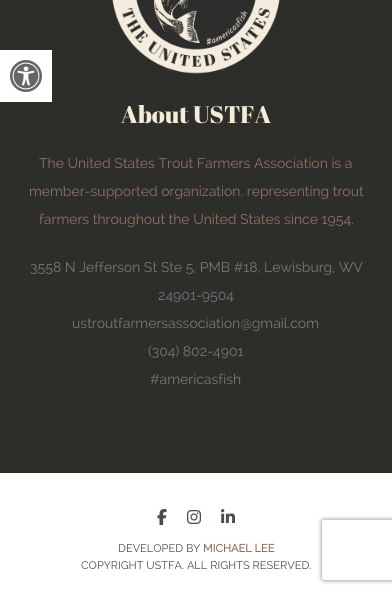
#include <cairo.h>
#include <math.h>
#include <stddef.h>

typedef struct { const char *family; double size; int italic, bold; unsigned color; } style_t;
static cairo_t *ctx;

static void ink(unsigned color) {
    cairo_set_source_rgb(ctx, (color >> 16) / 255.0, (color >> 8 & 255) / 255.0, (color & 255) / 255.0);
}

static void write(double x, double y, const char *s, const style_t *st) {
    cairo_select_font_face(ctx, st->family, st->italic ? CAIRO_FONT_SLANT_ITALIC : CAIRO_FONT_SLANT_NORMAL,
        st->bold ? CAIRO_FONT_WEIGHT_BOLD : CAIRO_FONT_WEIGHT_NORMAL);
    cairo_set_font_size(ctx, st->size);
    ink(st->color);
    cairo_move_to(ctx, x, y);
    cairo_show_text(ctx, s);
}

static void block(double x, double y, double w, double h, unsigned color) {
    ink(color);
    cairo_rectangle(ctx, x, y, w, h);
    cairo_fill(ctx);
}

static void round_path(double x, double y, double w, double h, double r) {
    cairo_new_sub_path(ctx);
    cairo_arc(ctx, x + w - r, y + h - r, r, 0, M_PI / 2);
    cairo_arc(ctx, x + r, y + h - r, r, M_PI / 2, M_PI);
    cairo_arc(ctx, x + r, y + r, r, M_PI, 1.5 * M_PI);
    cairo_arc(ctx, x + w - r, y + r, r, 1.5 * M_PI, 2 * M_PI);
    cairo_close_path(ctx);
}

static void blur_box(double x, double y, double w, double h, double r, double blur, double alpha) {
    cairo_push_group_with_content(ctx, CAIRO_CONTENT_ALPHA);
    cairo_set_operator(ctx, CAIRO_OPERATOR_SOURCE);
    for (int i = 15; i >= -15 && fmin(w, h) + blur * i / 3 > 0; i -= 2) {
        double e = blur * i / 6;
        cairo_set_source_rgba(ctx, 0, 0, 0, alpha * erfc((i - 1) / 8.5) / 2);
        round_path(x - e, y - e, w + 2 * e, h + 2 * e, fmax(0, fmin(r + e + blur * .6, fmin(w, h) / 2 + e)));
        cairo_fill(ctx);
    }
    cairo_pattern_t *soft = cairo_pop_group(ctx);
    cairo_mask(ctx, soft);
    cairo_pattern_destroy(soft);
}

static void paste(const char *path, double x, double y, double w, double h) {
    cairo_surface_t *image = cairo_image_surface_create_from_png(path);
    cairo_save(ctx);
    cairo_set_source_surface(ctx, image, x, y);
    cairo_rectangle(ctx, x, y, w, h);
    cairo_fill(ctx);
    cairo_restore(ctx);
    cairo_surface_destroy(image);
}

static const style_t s1 = {"Abril Fatface", 24, 0, 0, 0xf4ebd9};
static const style_t s2 = {"Raleway", 14, 0, 0, 0x8e7364};
static const style_t s3 = {"Raleway", 14, 0, 0, 0x777777};
static const style_t s4 = {"Raleway", 11, 0, 0, 0x474b54};
static const style_t s5 = {"Raleway", 11, 0, 1, 0x8e7364};

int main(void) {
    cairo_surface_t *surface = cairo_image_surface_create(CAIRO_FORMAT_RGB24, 392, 594);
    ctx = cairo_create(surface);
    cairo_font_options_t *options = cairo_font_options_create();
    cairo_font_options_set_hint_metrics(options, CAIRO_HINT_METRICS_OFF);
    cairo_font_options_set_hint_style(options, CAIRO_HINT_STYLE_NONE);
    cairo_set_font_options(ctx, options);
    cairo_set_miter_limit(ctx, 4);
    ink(0x2d2d2a);
    cairo_paint(ctx);
    block(0, 50, 52, 52, 0xffffff);
    paste("pic1.png", 10, 60, 32, 32);
    paste("pic2.png", 112, 0, 168, 74);
    write(121, 123, "About USTFA", &s1);
    write(39, 168, "The United States Trout Farmers Association is a", &s2);
    write(29, 196, "member-supported organization, representing trout", &s2);
    write(39, 224, "farmers throughout the United States since 1954.", &s2);
    write(30, 272, "3558 N Jefferson St Ste 5, PMB #18, Lewisburg, WV", &s3);
    write(158, 300, "24901-9504", &s3);
    write(72, 328, "ustroutfarmersassociation@gmail.com", &s3);
    write(148, 356, "(304) 802-4901", &s3);
    write(150, 384, "#americasfish", &s3);
    block(0, 473, 392, 121, 0xffffff);
    paste("pic3.png", 157, 509, 10, 16);
    paste("pic4.png", 187, 510, 14, 14);
    paste("pic5.png", 221, 509, 14, 14);
    write(118, 552, "DEVELOPED BY", &s4);
    write(203, 552, "MICHAEL LEE", &s5);
    write(81, 569, "COPYRIGHT USTFA. ALL RIGHTS RESERVED.", &s4);
    cairo_save(ctx);
    cairo_set_fill_rule(ctx, CAIRO_FILL_RULE_EVEN_ODD);
    cairo_new_path(ctx);
    cairo_move_to(ctx, 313, 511);
    cairo_line_to(ctx, 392, 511);
    cairo_line_to(ctx, 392, 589);
    cairo_line_to(ctx, 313, 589);
    cairo_close_path(ctx);
    cairo_move_to(ctx, 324, 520);
    cairo_line_to(ctx, 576, 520);
    cairo_curve_to(ctx, 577, 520, 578, 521, 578, 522);
    cairo_line_to(ctx, 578, 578);
    cairo_curve_to(ctx, 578, 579, 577, 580, 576, 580);
    cairo_line_to(ctx, 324, 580);
    cairo_curve_to(ctx, 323, 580, 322, 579, 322, 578);
    cairo_line_to(ctx, 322, 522);
    cairo_curve_to(ctx, 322, 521, 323, 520, 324, 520);
    cairo_close_path(ctx);
    cairo_clip(ctx);
    ink(0x808080);
    blur_box(322, 520, 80, 60, 2, 2.5, 1);
    cairo_restore(ctx);
    cairo_surface_write_to_png(surface, "screenshot.png");
    cairo_font_options_destroy(options);
    cairo_destroy(ctx);
    cairo_surface_destroy(surface);
    return 0;
}
